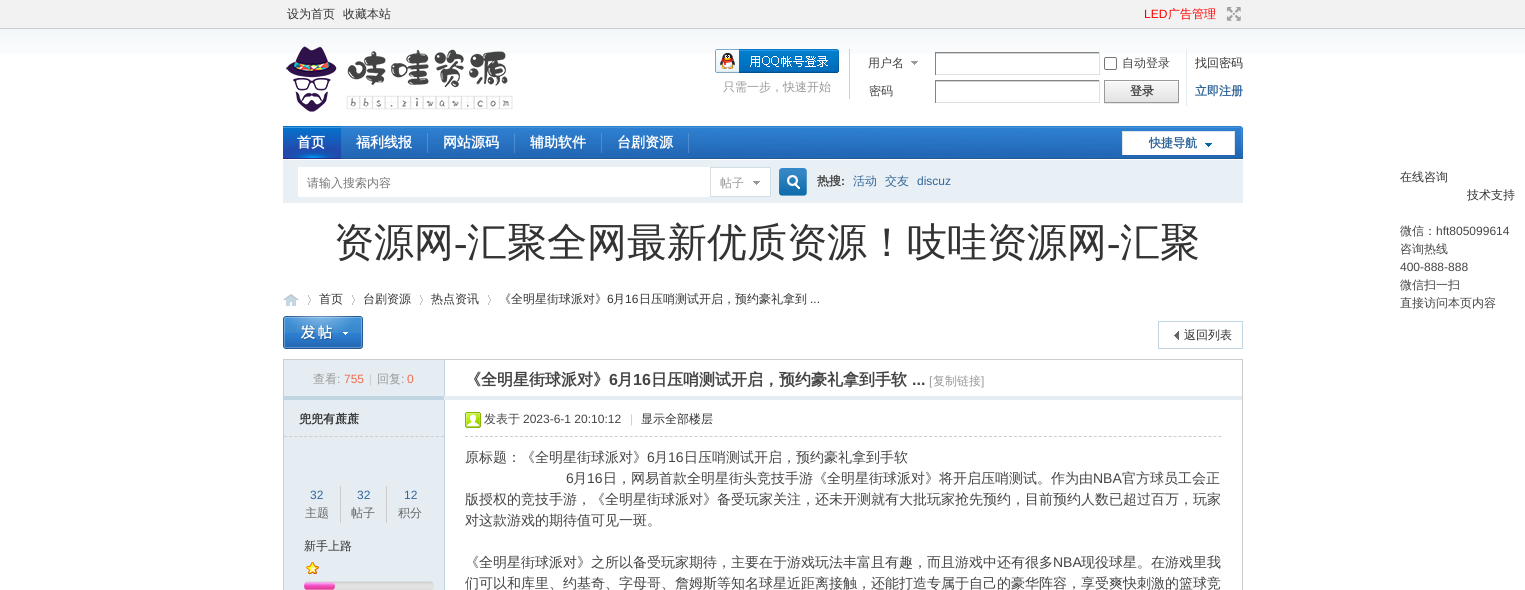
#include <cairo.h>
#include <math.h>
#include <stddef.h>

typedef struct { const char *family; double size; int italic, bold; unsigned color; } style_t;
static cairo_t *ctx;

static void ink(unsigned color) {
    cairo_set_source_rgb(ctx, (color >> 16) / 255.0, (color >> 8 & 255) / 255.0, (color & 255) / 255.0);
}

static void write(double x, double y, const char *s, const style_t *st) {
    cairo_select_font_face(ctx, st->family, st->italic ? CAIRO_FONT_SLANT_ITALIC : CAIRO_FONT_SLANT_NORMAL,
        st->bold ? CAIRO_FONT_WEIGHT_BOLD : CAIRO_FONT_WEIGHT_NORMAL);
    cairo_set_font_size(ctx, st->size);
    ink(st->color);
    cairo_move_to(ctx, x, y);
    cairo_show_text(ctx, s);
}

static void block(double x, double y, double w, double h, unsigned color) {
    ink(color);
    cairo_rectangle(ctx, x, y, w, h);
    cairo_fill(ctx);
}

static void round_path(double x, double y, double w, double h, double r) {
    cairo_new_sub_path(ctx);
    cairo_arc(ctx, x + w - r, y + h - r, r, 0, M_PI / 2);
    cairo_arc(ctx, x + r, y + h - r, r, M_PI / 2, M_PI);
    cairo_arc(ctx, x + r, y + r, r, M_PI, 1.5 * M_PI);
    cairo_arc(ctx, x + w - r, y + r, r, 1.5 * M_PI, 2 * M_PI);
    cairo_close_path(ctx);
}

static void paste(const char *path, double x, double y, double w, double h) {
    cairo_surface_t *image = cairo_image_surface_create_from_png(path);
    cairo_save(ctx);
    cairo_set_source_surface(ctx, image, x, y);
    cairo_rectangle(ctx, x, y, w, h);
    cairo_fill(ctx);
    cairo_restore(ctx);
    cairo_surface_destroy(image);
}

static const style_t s1 = {"WenQuanYi Zen Hei Medium", 12, 0, 0, 0x333333};
static const style_t s2 = {"Liberation Sans", 12, 0, 0, 0xff0000};
static const style_t s3 = {"WenQuanYi Zen Hei Medium", 12, 0, 0, 0xff0000};
static const style_t s4 = {"WenQuanYi Zen Hei Medium", 12, 0, 0, 0x999999};
static const style_t s5 = {"WenQuanYi Zen Hei Medium", 12, 0, 0, 0x444444};
static const style_t s6 = {"WenQuanYi Zen Hei", 12, 0, 1, 0x444444};
static const style_t s7 = {"WenQuanYi Zen Hei", 12, 0, 1, 0x336699};
static const style_t s8 = {"WenQuanYi Zen Hei", 14, 0, 1, 0xffffff};
static const style_t s9 = {"Liberation Sans", 12, 0, 1, 0x444444};
static const style_t s10 = {"WenQuanYi Zen Hei Medium", 12, 0, 0, 0x336699};
static const style_t s11 = {"Liberation Sans", 12, 0, 0, 0x336699};
static const style_t s12 = {"WenQuanYi Zen Hei Medium", 12, 0, 0, 0x757575};
static const style_t s13 = {"WenQuanYi Zen Hei Medium", 40, 0, 0, 0x333333};
static const style_t s14 = {"Liberation Serif", 40, 0, 0, 0x333333};
static const style_t s15 = {"Liberation Sans", 12, 0, 0, 0x444444};
static const style_t s16 = {"Liberation Sans", 12, 0, 0, 0x333333};
static const style_t s17 = {"Liberation Sans", 12, 0, 0, 0x999999};
static const style_t s18 = {"Liberation Sans", 12, 0, 0, 0xf26c4f};
static const style_t s19 = {"Liberation Sans", 12, 0, 0, 0xcccccc};
static const style_t s20 = {"WenQuanYi Zen Hei", 16, 0, 1, 0x444444};
static const style_t s21 = {"Liberation Sans", 16, 0, 1, 0x444444};
static const style_t s22 = {"WenQuanYi Zen Hei", 12, 0, 1, 0x333333};
static const style_t s23 = {"WenQuanYi Zen Hei Medium", 12, 0, 0, 0x666666};
static const style_t s24 = {"WenQuanYi Zen Hei Medium", 14, 0, 0, 0x444444};
static const style_t s25 = {"Liberation Sans", 14, 0, 0, 0x444444};

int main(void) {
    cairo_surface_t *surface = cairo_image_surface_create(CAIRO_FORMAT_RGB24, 1525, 590);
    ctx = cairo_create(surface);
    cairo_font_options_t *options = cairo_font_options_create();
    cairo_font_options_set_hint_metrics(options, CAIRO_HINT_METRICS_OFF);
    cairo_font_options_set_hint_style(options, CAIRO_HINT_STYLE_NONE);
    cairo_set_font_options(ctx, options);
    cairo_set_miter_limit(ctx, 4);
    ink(0xffffff);
    cairo_paint(ctx);
    paste("pic1.png", 0, 29, 1525, 25);
    block(0, 0, 1525, 28, 0xf2f2f2);
    block(0, 28, 1525, 1, 0xcdcdcd);
    write(287, 18, "设为首页", &s1);
    write(343, 18, "收藏本站", &s1);
    write(1144, 18, "LED", &s2);
    write(1168, 18, "广告管理", &s3);
    paste("pic2.png", 1226, 7, 15, 14);
    paste("pic3.png", 286, 46, 227, 66);
    block(849, 49, 1, 50, 0xcdcdcd);
    paste("pic4.png", 715, 49, 124, 24);
    write(723, 91, "只需一步，快速开始", &s4);
    paste("pic5.png", 911, 61, 7, 4);
    write(868, 67, "用户名", &s5);
    block(935, 53, 165, 1, 0xd4d4d4);
    block(935, 52, 165, 1, 0x848484);
    block(1099, 52, 1, 23, 0xe0e0e0);
    block(935, 74, 165, 1, 0xe0e0e0);
    block(935, 52, 1, 23, 0x848484);
    round_path(1104.5, 57.5, 12, 12, 1.5);
    ink(0x767676);
    cairo_set_line_width(ctx, 1);
    cairo_stroke(ctx);
    write(1122, 67, "自动登录", &s5);
    write(1195, 67, "找回密码", &s1);
    write(869, 95, "密码", &s5);
    block(935, 81, 165, 1, 0xd4d4d4);
    block(935, 80, 165, 1, 0x848484);
    block(1099, 80, 1, 23, 0xe0e0e0);
    block(935, 102, 165, 1, 0xe0e0e0);
    block(935, 80, 1, 23, 0x848484);
    block(1186, 49, 1, 57, 0xe5edf2);
    block(1104, 103, 75, 1, 0xe5e5e5);
    paste("pic6.png", 1105, 81, 73, 21);
    cairo_rectangle(ctx, 1104.5, 80.5, 74, 22);
    ink(0x999999);
    cairo_stroke(ctx);
    write(1130, 95, "登录", &s6);
    write(1195, 95, "立即注册", &s7);
    paste("pic7.png", 341, 126, 902, 33);
    paste("pic8.png", 283, 126, 58, 33);
    write(297, 147, "首页", &s8);
    paste("pic9.png", 427, 133, 1, 20);
    write(356, 147, "福利线报", &s8);
    paste("pic9.png", 514, 133, 1, 20);
    write(443, 147, "网站源码", &s8);
    paste("pic9.png", 601, 133, 1, 20);
    write(530, 147, "辅助软件", &s8);
    paste("pic9.png", 688, 133, 1, 20);
    write(617, 147, "台剧资源", &s8);
    paste("pic10.png", 1122, 131, 113, 24);
    write(1149, 147, "快捷导航", &s7);
    block(283, 160, 960, 43, 0xe8eff5);
    block(298, 167, 412, 30, 0xffffff);
    paste("pic11.png", 779, 168, 28, 28);
    write(817, 185, "热搜", &s6);
    write(841, 185, ":", &s9);
    write(853, 185, "活动", &s10);
    write(885, 185, "交友", &s10);
    write(917, 185, "discuz", &s11);
    write(307, 187, "请输入搜索内容", &s12);
    paste("pic12.png", 710, 167, 61, 30);
    write(720, 187, "帖子", &s4);
    write(334, 256, "资源网", &s13);
    write(454, 256, "-", &s14);
    write(467, 256, "汇聚全网最新优质资源！吱哇资源网", &s13);
    write(1107, 256, "-", &s14);
    write(1120, 256, "汇聚", &s13);
    write(1400, 181, "在线咨询", &s1);
    write(1467, 199, "技术支持", &s1);
    write(1400, 235, "微信：", &s5);
    write(1436, 235, "hft805099614", &s15);
    write(1400, 253, "咨询热线", &s5);
    write(1400, 271, "400-888-888", &s15);
    write(1400, 289, "微信扫一扫", &s5);
    write(1400, 307, "直接访问本页内容", &s5);
    paste("pic13.png", 283, 294, 16, 12);
    paste("pic14.png", 308, 295, 3, 10);
    write(319, 303, "首页", &s1);
    paste("pic14.png", 352, 295, 3, 10);
    write(363, 303, "台剧资源", &s1);
    paste("pic14.png", 420, 295, 3, 10);
    write(431, 303, "热点资讯", &s1);
    paste("pic14.png", 488, 295, 3, 10);
    write(499, 303, "《全明星街球派对》", &s1);
    write(607, 303, "6", &s16);
    write(613, 303, "月", &s1);
    write(625, 303, "16", &s16);
    write(639, 303, "日压哨测试开启，预约豪礼拿到", &s1);
    write(810, 303, "...", &s16);
    paste("pic15.png", 283, 316, 80, 33);
    paste("pic16.png", 1174, 331, 5, 9);
    cairo_rectangle(ctx, 1158.5, 321.5, 84, 27);
    ink(0xc2d5e3);
    cairo_stroke(ctx);
    write(1184, 339, "返回列表", &s1);
    cairo_rectangle(ctx, 283.5, 359.5, 959, 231);
    ink(0xcdcdcd);
    cairo_stroke(ctx);
    block(444, 360, 1, 37, 0xc2d5e3);
    block(284, 360, 160, 36, 0xe5edf2);
    write(313, 383, "查看", &s4);
    write(337, 383, ":", &s17);
    write(344, 383, "755", &s18);
    write(369, 383, "|", &s19);
    write(377, 383, "回复", &s4);
    write(401, 383, ":", &s17);
    write(407, 383, "0", &s18);
    write(465, 385, "《全明星街球派对》", &s20);
    write(609, 385, "6", &s21);
    write(617, 385, "月", &s20);
    write(633, 385, "16", &s21);
    write(651, 385, "日压哨测试开启，预约豪礼拿到手软", &s20);
    write(912, 385, "...", &s21);
    write(929, 385, "[", &s17);
    write(933, 385, "复制链接", &s4);
    write(981, 385, "]", &s17);
    block(284, 396, 160, 4, 0xc2d5e3);
    block(444, 396, 798, 4, 0xe5edf2);
    block(444, 400, 1, 190, 0xc2d5e3);
    block(284, 400, 160, 190, 0xe5edf2);
    cairo_new_path(ctx);
    cairo_move_to(ctx, 284, 436.5);
    cairo_line_to(ctx, 444, 436.5);
    ink(0xcdcdcd);
    cairo_set_dash(ctx, (double[]){3, 2.06}, 2, 0);
    cairo_stroke(ctx);
    write(299, 423, "兜兜有蔗蔗", &s22);
    block(340, 486, 1, 37, 0xcccccc);
    write(310, 499, "32", &s11);
    write(305, 517, "主题", &s23);
    block(386, 486, 1, 37, 0xcccccc);
    write(357, 499, "32", &s11);
    write(351, 517, "帖子", &s23);
    write(404, 499, "12", &s11);
    write(398, 517, "积分", &s23);
    write(304, 550, "新手上路", &s1);
    paste("pic17.png", 306, 562, 13, 12);
    paste("pic18.png", 304, 581, 130, 9);
    paste("pic19.png", 304, 582, 31, 8);
    cairo_new_path(ctx);
    cairo_move_to(ctx, 465, 436.5);
    cairo_line_to(ctx, 1222, 436.5);
    ink(0xcdcdcd);
    cairo_set_dash(ctx, (double[]){3, 1.99}, 2, 0);
    cairo_stroke(ctx);
    paste("pic20.png", 465, 412, 16, 16);
    write(484, 423, "发表于", &s5);
    write(523, 423, "2023-6-1 20:10:12", &s15);
    write(630, 423, "|", &s19);
    write(641, 423, "显示全部楼层", &s1);
    write(465, 462, "原标题：《全明星街球派对》", &s24);
    write(647, 462, "6", &s25);
    write(654, 462, "月", &s24);
    write(668, 462, "16", &s25);
    write(684, 462, "日压哨测试开启，预约豪礼拿到手软", &s24);
    write(566, 483, "6", &s25);
    write(573, 483, "月", &s24);
    write(587, 483, "16", &s25);
    write(603, 483, "日，网易首款全明星街头竞技手游《全明星街球派对》将开启压哨测试。作为由", &s24);
    write(1093, 483, "NBA", &s25);
    write(1122, 483, "官方球员工会正", &s24);
    write(465, 504, "版授权的竞技手游，《全明星街球派对》备受玩家关注，还未开测就有大批玩家抢先预约，目前预约人数已超过百万，玩家", &s24);
    write(465, 525, "对这款游戏的期待值可见一斑。", &s24);
    write(465, 567, "《全明星街球派对》之所以备受玩家期待，主要在于游戏玩法丰富且有趣，而且游戏中还有很多", &s24);
    write(1053, 567, "NBA", &s25);
    write(1081, 567, "现役球星。在游戏里我", &s24);
    write(465, 588, "们可以和库里、约基奇、字母哥、詹姆斯等知名球星近距离接触，还能打造专属于自己的豪华阵容，享受爽快刺激的篮球竞", &s24);
    cairo_surface_write_to_png(surface, "screenshot.png");
    cairo_font_options_destroy(options);
    cairo_destroy(ctx);
    cairo_surface_destroy(surface);
    return 0;
}
